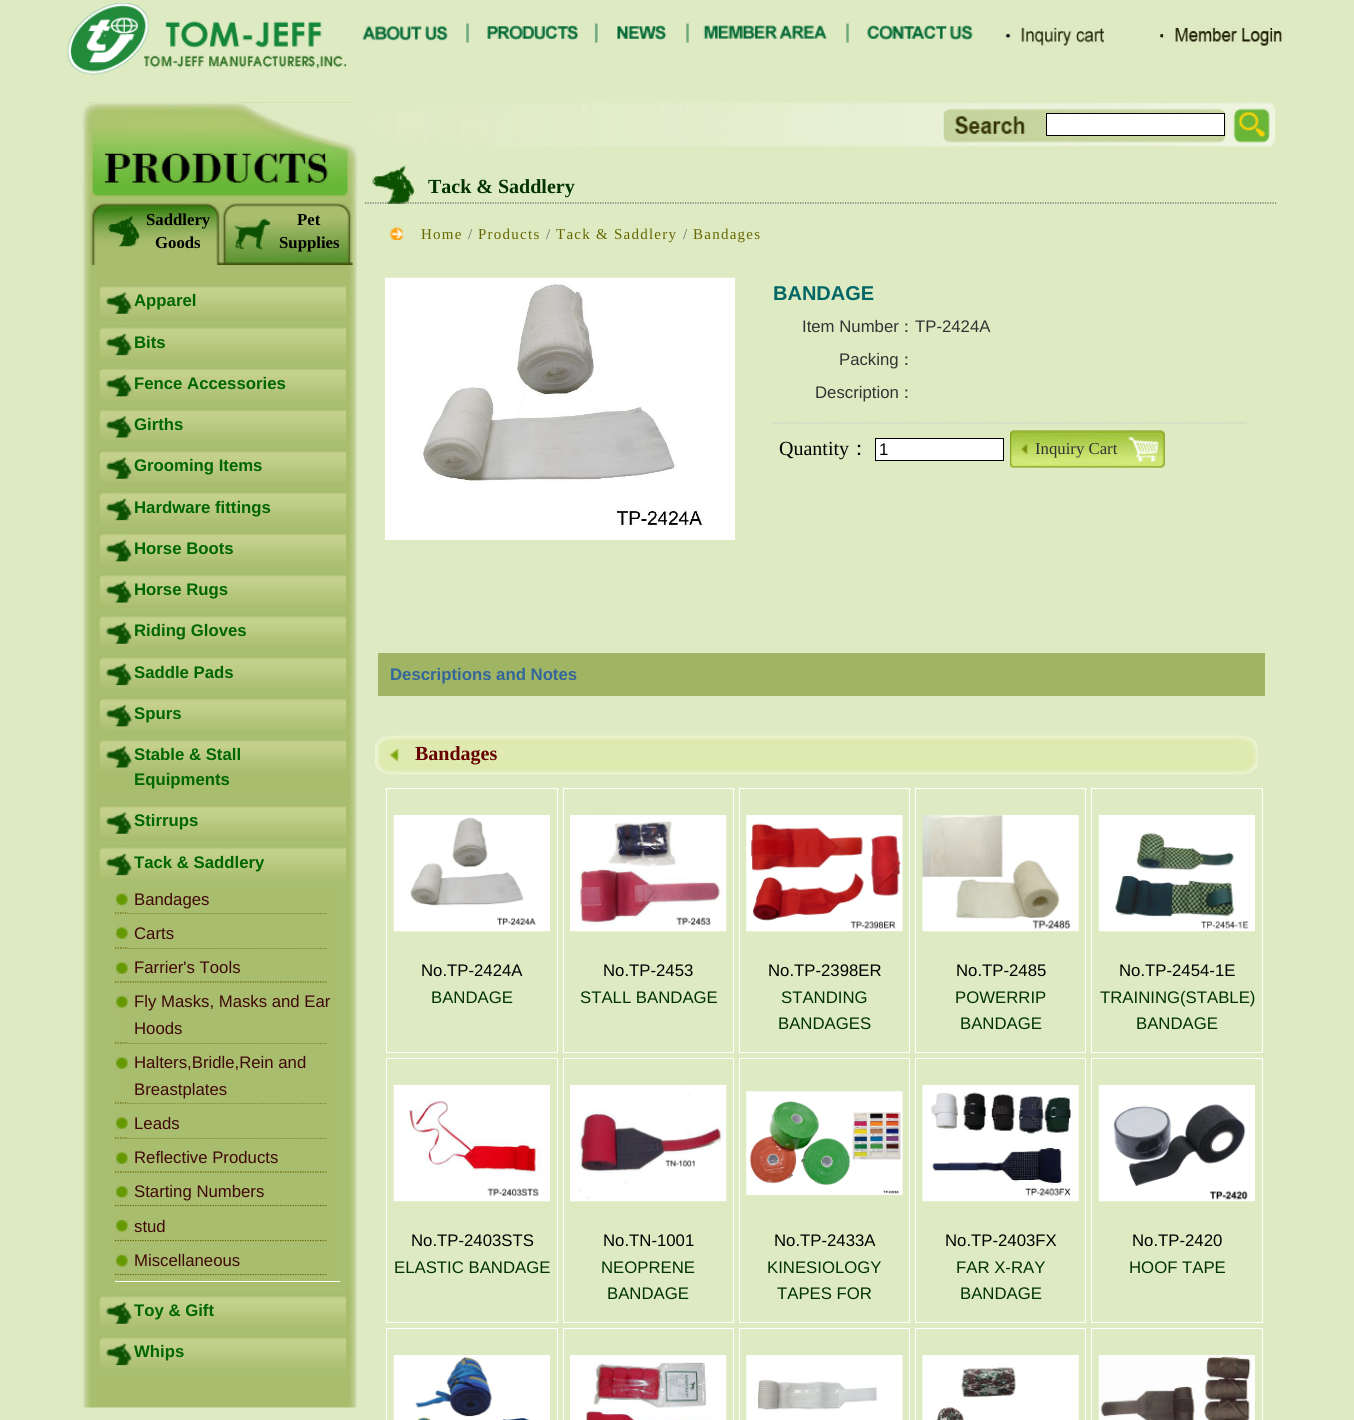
#include <cairo.h>
#include <math.h>
#include <stddef.h>

typedef struct { const char *family; double size; int italic, bold; unsigned color; } style_t;
static cairo_t *ctx;

static void ink(unsigned color) {
    cairo_set_source_rgb(ctx, (color >> 16) / 255.0, (color >> 8 & 255) / 255.0, (color & 255) / 255.0);
}

static void write(double x, double y, const char *s, const style_t *st) {
    cairo_select_font_face(ctx, st->family, st->italic ? CAIRO_FONT_SLANT_ITALIC : CAIRO_FONT_SLANT_NORMAL,
        st->bold ? CAIRO_FONT_WEIGHT_BOLD : CAIRO_FONT_WEIGHT_NORMAL);
    cairo_set_font_size(ctx, st->size);
    ink(st->color);
    cairo_move_to(ctx, x, y);
    cairo_show_text(ctx, s);
}

static void write_spaced(double x, double y, const char *s, double letter, double word) {
    cairo_move_to(ctx, x, y);
    while (*s) {
        char ch[5] = {0};
        int n = 0;
        do ch[n++] = *s++; while ((*s & 0xC0) == 0x80);
        cairo_show_text(ctx, ch);
        cairo_rel_move_to(ctx, letter + word * (*ch == ' '), 0);
    }
}

static void block(double x, double y, double w, double h, unsigned color) {
    ink(color);
    cairo_rectangle(ctx, x, y, w, h);
    cairo_fill(ctx);
}

static void paste(const char *path, double x, double y, double w, double h) {
    cairo_surface_t *image = cairo_image_surface_create_from_png(path);
    cairo_save(ctx);
    cairo_set_source_surface(ctx, image, x, y);
    cairo_rectangle(ctx, x, y, w, h);
    cairo_fill(ctx);
    cairo_restore(ctx);
    cairo_surface_destroy(image);
}

static const style_t s1 = {"Liberation Serif", 16.75, 0, 1, 0x000000};
static const style_t s2 = {"Liberation Sans", 16.75, 0, 1, 0x006600};
static const style_t s3 = {"Liberation Sans", 16.75, 0, 0, 0x410808};
static const style_t s4 = {"Liberation Serif", 20, 0, 1, 0x003300};
static const style_t s5 = {"Liberation Sans", 20, 0, 1, 0x006666};
static const style_t s6 = {"Liberation Sans", 16.75, 0, 0, 0x333333};
static const style_t s7 = {"WenQuanYi Zen Hei Medium", 16.75, 0, 0, 0x333333};
static const style_t s8 = {"Liberation Serif", 20, 0, 0, 0x000000};
static const style_t s9 = {"WenQuanYi Zen Hei Medium", 20, 0, 0, 0x000000};
static const style_t s10 = {"Liberation Sans", 16.75, 0, 0, 0x000000};
static const style_t s11 = {"Liberation Serif", 16.75, 0, 0, 0x333333};
static const style_t s12 = {"Liberation Sans", 16.75, 0, 1, 0x336699};
static const style_t s13 = {"Liberation Serif", 20, 0, 1, 0x660000};
static const style_t s14 = {"Liberation Sans", 16.75, 0, 0, 0x003300};

int main(void) {
    cairo_surface_t *surface = cairo_image_surface_create(CAIRO_FORMAT_RGB24, 1354, 1420);
    ctx = cairo_create(surface);
    cairo_font_options_t *options = cairo_font_options_create();
    cairo_font_options_set_hint_metrics(options, CAIRO_HINT_METRICS_OFF);
    cairo_font_options_set_hint_style(options, CAIRO_HINT_STYLE_NONE);
    cairo_set_font_options(ctx, options);
    cairo_set_miter_limit(ctx, 4);
    ink(0xdeeac2);
    cairo_paint(ctx);
    paste("pic1.png", 67, 3, 280, 72);
    paste("pic2.png", 362, 26, 86, 15);
    paste("pic3.png", 466, 22, 3, 21);
    paste("pic4.png", 487, 25, 91, 16);
    paste("pic5.png", 594, 22, 4, 21);
    paste("pic6.png", 617, 25, 50, 16);
    paste("pic3.png", 686, 22, 3, 21);
    paste("pic7.png", 703, 25, 124, 14);
    paste("pic3.png", 846, 22, 3, 21);
    paste("pic8.png", 867, 25, 106, 16);
    paste("pic9.png", 1005, 27, 100, 19);
    paste("pic10.png", 1160, 24, 125, 22);
    paste("pic11.png", 83, 102, 274, 1306);
    paste("pic12.png", 82, 102, 276, 100);
    paste("pic13.png", 90, 203, 132, 62);
    paste("pic14.png", 108, 215, 32, 32);
    write(146, 225, "Saddlery", &s1);
    write(155, 248, "Goods", &s1);
    paste("pic15.png", 221, 203, 132, 62);
    paste("pic16.png", 234, 218, 37, 32);
    write(297, 225, "Pet", &s1);
    write(279, 248, "Supplies", &s1);
    block(96, 319, 250, 1057, 0xa8bf71);
    paste("pic17.png", 99, 284, 247, 33);
    write(134, 306, "Apparel", &s2);
    block(96, 325, 250, 35, 0xa8bd6e);
    paste("pic18.png", 99, 325, 247, 34);
    write(134, 348, "Bits", &s2);
    block(96, 366, 250, 35, 0xa8bd6e);
    paste("pic19.png", 99, 368, 247, 32);
    write(134, 389, "Fence Accessories", &s2);
    block(96, 408, 250, 35, 0xa8bd6e);
    paste("pic20.png", 99, 408, 247, 33);
    write(134, 430, "Girths", &s2);
    block(96, 449, 250, 35, 0xa8bd6e);
    paste("pic21.png", 99, 449, 247, 33);
    write(134, 471, "Grooming Items", &s2);
    block(96, 490, 250, 35, 0xa8bd6e);
    paste("pic18.png", 99, 490, 247, 34);
    write(134, 513, "Hardware fittings", &s2);
    block(96, 531, 250, 35, 0xa8bd6e);
    paste("pic19.png", 99, 533, 247, 32);
    write(134, 554, "Horse Boots", &s2);
    block(96, 573, 250, 35, 0xa8bd6e);
    paste("pic22.png", 99, 573, 247, 33);
    write(134, 595, "Horse Rugs", &s2);
    block(96, 614, 250, 35, 0xa8bd6e);
    paste("pic21.png", 99, 614, 247, 33);
    write(134, 636, "Riding Gloves", &s2);
    block(96, 655, 250, 35, 0xa8bd6e);
    paste("pic18.png", 99, 655, 247, 34);
    write(134, 678, "Saddle Pads", &s2);
    block(96, 696, 250, 35, 0xa8bd6e);
    paste("pic19.png", 99, 698, 247, 32);
    write(134, 719, "Spurs", &s2);
    block(96, 738, 250, 60, 0xa8bd6e);
    paste("pic20.png", 99, 738, 247, 33);
    write(134, 760, "Stable & Stall", &s2);
    write(134, 785, "Equipments", &s2);
    block(96, 804, 250, 35, 0xa8bd6e);
    paste("pic21.png", 99, 804, 247, 33);
    write(134, 826, "Stirrups", &s2);
    block(96, 845, 250, 35, 0xa8bd6e);
    paste("pic18.png", 99, 845, 247, 34);
    write(134, 868, "Tack & Saddlery", &s2);
    block(115, 1281, 225, 1, 0xffffff);
    block(115, 886, 225, 395, 0xa8bd6e);
    paste("pic23.png", 115, 892, 13, 14);
    cairo_new_path(ctx);
    cairo_move_to(ctx, 115, 913);
    cairo_line_to(ctx, 327.5, 913);
    ink(0x666600);
    cairo_set_line_width(ctx, 1.2);
    cairo_set_dash(ctx, (double[]){1.25, 1.25}, 2, 0);
    cairo_stroke(ctx);
    block(128, 912, 199, 1, 0xa8bd6e);
    write(134, 905, "Bandages", &s3);
    paste("pic24.png", 115, 926, 13, 14);
    cairo_new_path(ctx);
    cairo_move_to(ctx, 115, 948);
    cairo_line_to(ctx, 327.5, 948);
    ink(0x666600);
    cairo_stroke(ctx);
    block(128, 947, 199, 1, 0xa8bd6e);
    write(134, 939, "Carts", &s3);
    paste("pic24.png", 115, 961, 13, 14);
    cairo_new_path(ctx);
    cairo_move_to(ctx, 115, 982);
    cairo_line_to(ctx, 327.5, 982);
    ink(0x666600);
    cairo_stroke(ctx);
    write(134, 973, "Farrier's Tools", &s3);
    paste("pic25.png", 115, 995, 13, 14);
    cairo_new_path(ctx);
    cairo_move_to(ctx, 115, 1043);
    cairo_line_to(ctx, 327.5, 1043);
    ink(0x666600);
    cairo_stroke(ctx);
    block(128, 1042, 199, 1, 0xa8bd6e);
    write(134, 1007, "Fly Masks, Masks and Ear", &s3);
    write(134, 1034, "Hoods", &s3);
    paste("pic24.png", 115, 1056, 13, 14);
    cairo_new_path(ctx);
    cairo_move_to(ctx, 115, 1103);
    cairo_line_to(ctx, 327.5, 1103);
    ink(0x666600);
    cairo_stroke(ctx);
    block(128, 1102, 199, 1, 0xa8bd6e);
    write(134, 1068, "Halters,Bridle,Rein and", &s3);
    write(134, 1095, "Breastplates", &s3);
    paste("pic24.png", 115, 1116, 13, 14);
    cairo_new_path(ctx);
    cairo_move_to(ctx, 115, 1138);
    cairo_line_to(ctx, 327.5, 1138);
    ink(0x666600);
    cairo_stroke(ctx);
    block(128, 1137, 199, 1, 0xa8bd6e);
    write(134, 1129, "Leads", &s3);
    paste("pic24.png", 115, 1151, 13, 14);
    cairo_new_path(ctx);
    cairo_move_to(ctx, 115, 1172);
    cairo_line_to(ctx, 327.5, 1172);
    ink(0x666600);
    cairo_stroke(ctx);
    write(134, 1163, "Reflective Products", &s3);
    paste("pic25.png", 115, 1185, 13, 14);
    cairo_new_path(ctx);
    cairo_move_to(ctx, 115, 1205.5);
    cairo_line_to(ctx, 327.5, 1205.5);
    ink(0x666600);
    cairo_stroke(ctx);
    block(128, 1204, 198, 1, 0xa8bd6e);
    write(134, 1197, "Starting Numbers", &s3);
    paste("pic26.png", 115, 1219, 13, 13);
    cairo_new_path(ctx);
    cairo_move_to(ctx, 115, 1240.5);
    cairo_line_to(ctx, 327.5, 1240.5);
    ink(0x666600);
    cairo_stroke(ctx);
    block(128, 1239, 198, 1, 0xa8bd6e);
    write(134, 1232, "stud", &s3);
    paste("pic26.png", 115, 1254, 13, 13);
    cairo_new_path(ctx);
    cairo_move_to(ctx, 115, 1274.5);
    cairo_line_to(ctx, 327.5, 1274.5);
    ink(0x666600);
    cairo_stroke(ctx);
    block(128, 1273, 198, 1, 0xa8bd6e);
    write(134, 1266, "Miscellaneous", &s3);
    block(96, 1294, 250, 35, 0xa8bd6e);
    paste("pic21.png", 99, 1294, 247, 33);
    write(134, 1316, "Toy & Gift", &s2);
    block(96, 1335, 250, 35, 0xa8bd6e);
    paste("pic18.png", 99, 1335, 247, 34);
    write(134, 1357, "Whips", &s2);
    paste("pic27.png", 369, 102, 909, 45);
    ink(0xffffff);
    cairo_rectangle(ctx, 1046.5, 113.5, 178, 22);
    cairo_fill_preserve(ctx);
    ink(0x000000);
    cairo_set_line_width(ctx, 1);
    cairo_set_dash(ctx, NULL, 0, 0);
    cairo_stroke(ctx);
    paste("pic28.png", 1227, 102, 50, 45);
    paste("pic29.png", 372, 165, 43, 39);
    cairo_new_path(ctx);
    cairo_move_to(ctx, 365, 203);
    cairo_line_to(ctx, 1277.5, 203);
    ink(0x666666);
    cairo_set_line_width(ctx, 1.2);
    cairo_set_dash(ctx, (double[]){1.25, 1.25}, 2, 0);
    cairo_stroke(ctx);
    write(428, 193, "Tack & Saddlery", &s4);
    paste("pic30.png", 390, 227, 13, 13);
    cairo_select_font_face(ctx, "Liberation Serif", CAIRO_FONT_SLANT_NORMAL, CAIRO_FONT_WEIGHT_NORMAL);
    cairo_set_font_size(ctx, 15);
    ink(0x666600);
    write_spaced(421, 239, "Home", 1.25, 0);
    ink(0x666666);
    write_spaced(468, 239, "/", 1.25, 0);
    ink(0x666600);
    write_spaced(478, 239, "Products", 1.25, 0);
    ink(0x666666);
    write_spaced(546, 239, "/", 1.25, 0);
    ink(0x666600);
    write_spaced(556, 239, "Tack & Saddlery", 1.25, 0);
    ink(0x666666);
    write_spaced(683, 239, "/", 1.25, 0);
    ink(0x666600);
    write_spaced(693, 239, "Bandages", 1.25, 0);
    paste("pic31.png", 385, 277, 350, 263);
    cairo_new_path(ctx);
    cairo_move_to(ctx, 772.5, 423);
    cairo_line_to(ctx, 1247.5, 423);
    ink(0xcccccc);
    cairo_stroke(ctx);
    write(773, 300, "BANDAGE", &s5);
    write(802, 332, "Item Number", &s6);
    write(898, 332, "：", &s7);
    write(915, 332, "TP-2424A", &s6);
    write(839, 365, "Packing", &s6);
    write(898, 365, "：", &s7);
    write(815, 398, "Description", &s6);
    write(898, 398, "：", &s7);
    write(779, 455, "Quantity", &s8);
    write(849, 455, "：", &s9);
    ink(0xffffff);
    cairo_rectangle(ctx, 875.5, 438.5, 128, 22);
    cairo_fill_preserve(ctx);
    ink(0x000000);
    cairo_set_line_width(ctx, 1);
    cairo_set_dash(ctx, NULL, 0, 0);
    cairo_stroke(ctx);
    write(879, 455, "1", &s10);
    paste("pic32.png", 1010, 430, 155, 38);
    write(1035, 454, "Inquiry Cart", &s11);
    block(378, 653, 887, 43, 0xa0b564);
    write(390, 680, "Descriptions and Notes", &s12);
    paste("pic33.png", 375, 735, 884, 40);
    write(415, 760, "Bandages", &s13);
    cairo_rectangle(ctx, 386.5, 788.5, 171, 264);
    ink(0xffffff);
    cairo_stroke(ctx);
    paste("pic34.png", 393, 815, 157, 117);
    write(421, 976, "No.TP-2424A", &s10);
    write(431, 1003, "BANDAGE", &s14);
    cairo_rectangle(ctx, 563.5, 788.5, 170, 264);
    ink(0xffffff);
    cairo_stroke(ctx);
    paste("pic35.png", 570, 815, 157, 117);
    write(603, 976, "No.TP-2453", &s10);
    write(580, 1003, "STALL BANDAGE", &s14);
    cairo_rectangle(ctx, 739.5, 788.5, 170, 264);
    ink(0xffffff);
    cairo_stroke(ctx);
    paste("pic36.png", 746, 815, 157, 117);
    write(768, 976, "No.TP-2398ER", &s10);
    write(781, 1003, "STANDING", &s14);
    write(778, 1029, "BANDAGES", &s14);
    cairo_rectangle(ctx, 915.5, 788.5, 170, 264);
    ink(0xffffff);
    cairo_stroke(ctx);
    paste("pic37.png", 922, 815, 157, 117);
    write(956, 976, "No.TP-2485", &s10);
    write(955, 1003, "POWERRIP", &s14);
    write(960, 1029, "BANDAGE", &s14);
    cairo_rectangle(ctx, 1091.5, 788.5, 171, 264);
    ink(0xffffff);
    cairo_stroke(ctx);
    paste("pic38.png", 1098, 815, 157, 117);
    write(1119, 976, "No.TP-2454-1E", &s10);
    write(1100, 1003, "TRAINING(STABLE)", &s14);
    write(1136, 1029, "BANDAGE", &s14);
    cairo_rectangle(ctx, 386.5, 1058.5, 171, 264);
    ink(0xffffff);
    cairo_stroke(ctx);
    paste("pic39.png", 393, 1085, 157, 117);
    write(411, 1246, "No.TP-2403STS", &s10);
    write(394, 1273, "ELASTIC BANDAGE", &s14);
    cairo_rectangle(ctx, 563.5, 1058.5, 170, 264);
    ink(0xffffff);
    cairo_stroke(ctx);
    paste("pic40.png", 570, 1085, 157, 117);
    write(603, 1246, "No.TN-1001", &s10);
    write(601, 1273, "NEOPRENE", &s14);
    write(607, 1299, "BANDAGE", &s14);
    cairo_rectangle(ctx, 739.5, 1058.5, 170, 264);
    ink(0xffffff);
    cairo_stroke(ctx);
    paste("pic41.png", 746, 1091, 157, 104);
    write(774, 1246, "No.TP-2433A", &s10);
    write(767, 1273, "KINESIOLOGY", &s14);
    write(777, 1299, "TAPES FOR", &s14);
    cairo_rectangle(ctx, 915.5, 1058.5, 170, 264);
    ink(0xffffff);
    cairo_stroke(ctx);
    paste("pic42.png", 922, 1085, 157, 117);
    write(945, 1246, "No.TP-2403FX", &s10);
    write(956, 1273, "FAR X-RAY", &s14);
    write(960, 1299, "BANDAGE", &s14);
    cairo_rectangle(ctx, 1091.5, 1058.5, 171, 264);
    ink(0xffffff);
    cairo_stroke(ctx);
    paste("pic43.png", 1098, 1085, 157, 117);
    write(1132, 1246, "No.TP-2420", &s10);
    write(1129, 1273, "HOOF TAPE", &s14);
    cairo_rectangle(ctx, 386.5, 1328.5, 171, 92);
    ink(0xffffff);
    cairo_stroke(ctx);
    paste("pic44.png", 393, 1355, 157, 65);
    cairo_rectangle(ctx, 563.5, 1328.5, 170, 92);
    cairo_stroke(ctx);
    paste("pic45.png", 570, 1355, 157, 65);
    cairo_rectangle(ctx, 739.5, 1328.5, 170, 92);
    cairo_stroke(ctx);
    paste("pic46.png", 746, 1355, 157, 65);
    cairo_rectangle(ctx, 915.5, 1328.5, 170, 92);
    cairo_stroke(ctx);
    paste("pic47.png", 922, 1355, 157, 65);
    cairo_rectangle(ctx, 1091.5, 1328.5, 171, 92);
    cairo_stroke(ctx);
    paste("pic48.png", 1098, 1355, 157, 65);
    cairo_surface_write_to_png(surface, "screenshot.png");
    cairo_font_options_destroy(options);
    cairo_destroy(ctx);
    cairo_surface_destroy(surface);
    return 0;
}
